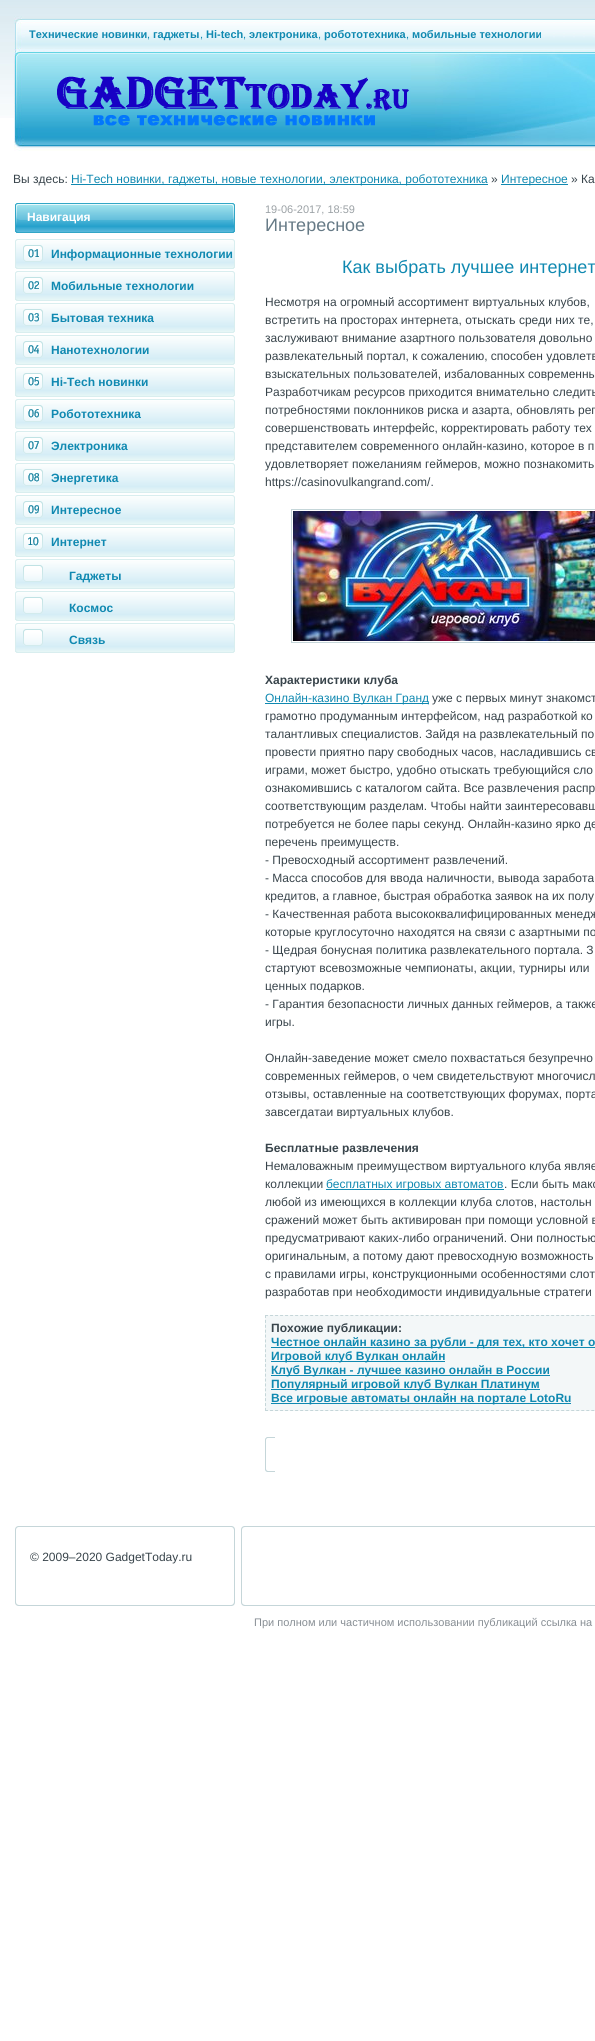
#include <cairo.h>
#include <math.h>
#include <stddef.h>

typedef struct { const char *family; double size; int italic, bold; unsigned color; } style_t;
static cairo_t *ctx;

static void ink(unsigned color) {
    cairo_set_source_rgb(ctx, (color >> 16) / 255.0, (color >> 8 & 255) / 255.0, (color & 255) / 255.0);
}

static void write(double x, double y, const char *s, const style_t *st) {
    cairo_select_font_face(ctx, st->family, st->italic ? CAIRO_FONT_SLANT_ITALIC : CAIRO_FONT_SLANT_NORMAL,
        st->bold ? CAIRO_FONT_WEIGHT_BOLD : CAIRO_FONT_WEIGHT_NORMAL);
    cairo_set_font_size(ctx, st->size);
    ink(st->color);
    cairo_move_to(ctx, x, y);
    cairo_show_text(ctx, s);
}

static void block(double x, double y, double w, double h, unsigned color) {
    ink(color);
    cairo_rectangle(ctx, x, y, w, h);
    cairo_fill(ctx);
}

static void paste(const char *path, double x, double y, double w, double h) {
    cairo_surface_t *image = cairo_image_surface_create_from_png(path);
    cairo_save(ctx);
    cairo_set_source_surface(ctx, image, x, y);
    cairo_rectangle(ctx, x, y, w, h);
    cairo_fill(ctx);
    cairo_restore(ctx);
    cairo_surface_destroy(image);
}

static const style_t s1 = {"Liberation Sans", 11, 0, 1, 0x1089b1};
static const style_t s2 = {"Liberation Sans", 11, 0, 0, 0x1089b1};
static const style_t s3 = {"Liberation Sans", 12, 0, 0, 0x38444b};
static const style_t s4 = {"Liberation Sans", 12, 0, 0, 0x1089b1};
static const style_t s5 = {"Liberation Sans", 12, 0, 1, 0xffffff};
static const style_t s6 = {"Liberation Sans", 12, 0, 1, 0x1089b1};
static const style_t s7 = {"Liberation Sans", 11, 0, 0, 0x9ba1a5};
static const style_t s8 = {"Liberation Sans", 18, 0, 0, 0x667a86};
static const style_t s9 = {"Liberation Sans", 18, 0, 0, 0x1089b1};
static const style_t s10 = {"Liberation Sans", 12, 0, 1, 0x38444b};
static const style_t s11 = {"Liberation Sans", 11, 0, 0, 0x878e94};

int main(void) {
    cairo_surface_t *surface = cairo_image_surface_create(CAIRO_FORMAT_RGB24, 595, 2041);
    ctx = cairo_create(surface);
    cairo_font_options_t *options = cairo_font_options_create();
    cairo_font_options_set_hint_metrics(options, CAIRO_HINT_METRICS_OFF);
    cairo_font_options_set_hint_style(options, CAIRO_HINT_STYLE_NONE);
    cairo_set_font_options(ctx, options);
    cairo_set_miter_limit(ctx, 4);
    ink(0xffffff);
    cairo_paint(ctx);
    paste("pic1.png", 0, 0, 595, 118);
    paste("pic2.png", 14, 16, 10, 135);
    paste("pic3.png", 24, 18, 571, 133);
    write(29, 38, "Технические новинки", &s1);
    write(147, 38, ",", &s2);
    write(153, 38, "гаджеты", &s1);
    write(200, 38, ",", &s2);
    write(206, 38, "Hi-tech", &s1);
    write(243, 38, ",", &s2);
    write(249, 38, "электроника", &s1);
    write(318, 38, ",", &s2);
    write(324, 38, "робототехника", &s1);
    write(406, 38, ",", &s2);
    write(412, 38, "мобильные технологии", &s1);
    paste("pic4.png", 411, 50, 184, 95);
    paste("pic5.png", 57, 76, 352, 50);
    write(13, 183, "Вы здесь:", &s3);
    block(71, 184, 417, 1, 0x1089b1);
    write(71, 183, "Hi-Tech новинки, гаджеты, новые технологии, электроника, робототехника", &s4);
    write(491, 183, "»", &s3);
    block(501, 184, 67, 1, 0x1089b1);
    write(501, 183, "Интересное", &s4);
    write(571, 183, "» Ка", &s3);
    paste("pic6.png", 15, 203, 220, 30);
    write(27, 221, "Навигация", &s5);
    paste("pic7.png", 15, 239, 220, 30);
    paste("pic8.png", 28, 249, 11, 9);
    write(51, 258, "Информационные технологии", &s6);
    paste("pic7.png", 15, 271, 220, 30);
    paste("pic9.png", 28, 281, 11, 9);
    write(51, 290, "Мобильные технологии", &s6);
    paste("pic7.png", 15, 303, 220, 30);
    paste("pic10.png", 28, 313, 11, 9);
    write(51, 322, "Бытовая техника", &s6);
    paste("pic7.png", 15, 335, 220, 30);
    paste("pic11.png", 28, 345, 11, 9);
    write(51, 354, "Нанотехнологии", &s6);
    paste("pic7.png", 15, 367, 220, 30);
    paste("pic12.png", 28, 377, 11, 9);
    write(51, 386, "Hi-Tech новинки", &s6);
    paste("pic7.png", 15, 399, 220, 30);
    paste("pic13.png", 28, 409, 11, 9);
    write(51, 418, "Робототехника", &s6);
    paste("pic7.png", 15, 431, 220, 30);
    paste("pic14.png", 28, 441, 11, 9);
    write(51, 450, "Электроника", &s6);
    paste("pic7.png", 15, 463, 220, 30);
    paste("pic15.png", 28, 473, 11, 9);
    write(51, 482, "Энергетика", &s6);
    paste("pic7.png", 15, 495, 220, 30);
    paste("pic16.png", 28, 505, 11, 9);
    write(51, 514, "Интересное", &s6);
    paste("pic7.png", 15, 527, 220, 30);
    paste("pic17.png", 28, 537, 11, 9);
    write(51, 546, "Интернет", &s6);
    paste("pic7.png", 15, 559, 220, 30);
    write(69, 580, "Гаджеты", &s6);
    paste("pic7.png", 15, 591, 220, 30);
    write(69, 612, "Космос", &s6);
    paste("pic7.png", 15, 623, 220, 30);
    write(69, 644, "Связь", &s6);
    write(265, 213, "19-06-2017, 18:59", &s7);
    write(265, 231, "Интересное", &s8);
    write(342, 273, "Как выбрать лучшее интернет", &s9);
    write(265, 306, "Несмотря на огромный ассортимент виртуальных клубов,", &s3);
    write(265, 324, "встретить на просторах интернета, отыскать среди них те,", &s3);
    write(265, 342, "заслуживают внимание азартного пользователя довольно", &s3);
    write(265, 360, "развлекательный портал, к сожалению, способен удовлетв", &s3);
    write(265, 378, "взыскательных пользователей, избалованных современны", &s3);
    write(265, 396, "Разработчикам ресурсов приходится внимательно следить", &s3);
    write(265, 414, "потребностями поклонников риска и азарта, обновлять рег", &s3);
    write(265, 432, "совершенствовать интерфейс, корректировать работу тех", &s3);
    write(265, 450, "представителем современного онлайн-казино, которое в п", &s3);
    write(265, 468, "удовлетворяет пожеланиям геймеров, можно познакомить", &s3);
    write(265, 486, "https://casinovulkangrand.com/.", &s3);
    cairo_rectangle(ctx, 291.5, 509.5, 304, 133);
    ink(0xc5d6d9);
    cairo_set_line_width(ctx, 1);
    cairo_stroke(ctx);
    paste("pic18.png", 293, 511, 302, 130);
    write(265, 684, "Характеристики клуба", &s10);
    block(265, 703, 164, 1, 0x1089b1);
    write(265, 702, "Онлайн-казино Вулкан Гранд", &s4);
    write(432, 702, "уже с первых минут знакомст", &s3);
    write(265, 720, "грамотно продуманным интерфейсом, над разработкой ко", &s3);
    write(265, 738, "талантливых специалистов. Зайдя на развлекательный по", &s3);
    write(265, 756, "провести приятно пару свободных часов, насладившись св", &s3);
    write(265, 774, "играми, может быстро, удобно отыскать требующийся сло", &s3);
    write(265, 792, "ознакомившись с каталогом сайта. Все развлечения распр", &s3);
    write(265, 810, "соответствующим разделам. Чтобы найти заинтересовавш", &s3);
    write(265, 828, "потребуется не более пары секунд. Онлайн-казино ярко де", &s3);
    write(265, 846, "перечень преимуществ.", &s3);
    write(265, 864, "- Превосходный ассортимент развлечений.", &s3);
    write(265, 882, "- Масса способов для ввода наличности, вывода заработа", &s3);
    write(265, 900, "кредитов, а главное, быстрая обработка заявок на их полу", &s3);
    write(265, 918, "- Качественная работа высококвалифицированных менедж", &s3);
    write(265, 936, "которые круглосуточно находятся на связи с азартными по", &s3);
    write(265, 954, "- Щедрая бонусная политика развлекательного портала. З", &s3);
    write(265, 972, "стартуют всевозможные чемпионаты, акции, турниры или", &s3);
    write(265, 990, "ценных подарков.", &s3);
    write(265, 1008, "- Гарантия безопасности личных данных геймеров, а также", &s3);
    write(265, 1026, "игры.", &s3);
    write(265, 1062, "Онлайн-заведение может смело похвастаться безупречно", &s3);
    write(265, 1080, "современных геймеров, о чем свидетельствуют многочисл", &s3);
    write(265, 1098, "отзывы, оставленные на соответствующих форумах, порта", &s3);
    write(265, 1116, "завсегдатаи виртуальных клубов.", &s3);
    write(265, 1152, "Бесплатные развлечения", &s10);
    write(265, 1170, "Немаловажным преимуществом виртуального клуба являе", &s3);
    write(265, 1188, "коллекции", &s3);
    block(326, 1189, 178, 1, 0x1089b1);
    write(326, 1188, "бесплатных игровых автоматов", &s4);
    write(504, 1188, ". Если быть макс", &s3);
    write(265, 1206, "любой из имеющихся в коллекции клуба слотов, настольн", &s3);
    write(265, 1224, "сражений может быть активирован при помощи условной в", &s3);
    write(265, 1242, "предусматривают каких-либо ограничений. Они полностью", &s3);
    write(265, 1260, "оригинальным, а потому дают превосходную возможность", &s3);
    write(265, 1278, "с правилами игры, конструкционными особенностями слот", &s3);
    write(265, 1296, "разработав при необходимости индивидуальные стратеги", &s3);
    block(265, 1315, 330, 96, 0xf3f7f8);
    cairo_new_path(ctx);
    cairo_move_to(ctx, 265, 1315.5);
    cairo_line_to(ctx, 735, 1315.5);
    ink(0xc5d6d9);
    cairo_set_dash(ctx, (double[]){3, 2.02}, 2, 0);
    cairo_stroke(ctx);
    cairo_new_path(ctx);
    cairo_move_to(ctx, 265, 1410.5);
    cairo_line_to(ctx, 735, 1410.5);
    cairo_stroke(ctx);
    cairo_new_path(ctx);
    cairo_move_to(ctx, 265.5, 1315);
    cairo_line_to(ctx, 265.5, 1411);
    cairo_set_dash(ctx, (double[]){3, 1.89}, 2, 0);
    cairo_stroke(ctx);
    write(271, 1332, "Похожие публикации:", &s10);
    block(271, 1347, 324, 1, 0x1089b1);
    write(271, 1346, "Честное онлайн казино за рубли - для тех, кто хочет о", &s6);
    block(271, 1361, 174, 1, 0x1089b1);
    write(271, 1360, "Игровой клуб Вулкан онлайн", &s6);
    block(271, 1375, 279, 1, 0x1089b1);
    write(271, 1374, "Клуб Вулкан - лучшее казино онлайн в России", &s6);
    block(271, 1389, 269, 1, 0x1089b1);
    write(271, 1388, "Популярный игровой клуб Вулкан Платинум", &s6);
    block(271, 1403, 300, 1, 0x1089b1);
    write(271, 1402, "Все игровые автоматы онлайн на портале LotoRu", &s6);
    paste("pic19.png", 265, 1437, 10, 35);
    paste("pic20.png", 15, 1526, 220, 80);
    write(30, 1561, "© 2009–2020 GadgetToday.ru", &s3);
    paste("pic21.png", 241, 1526, 354, 80);
    write(254, 1626, "При полном или частичном использовании публикаций ссылка на", &s11);
    cairo_surface_write_to_png(surface, "screenshot.png");
    cairo_font_options_destroy(options);
    cairo_destroy(ctx);
    cairo_surface_destroy(surface);
    return 0;
}
